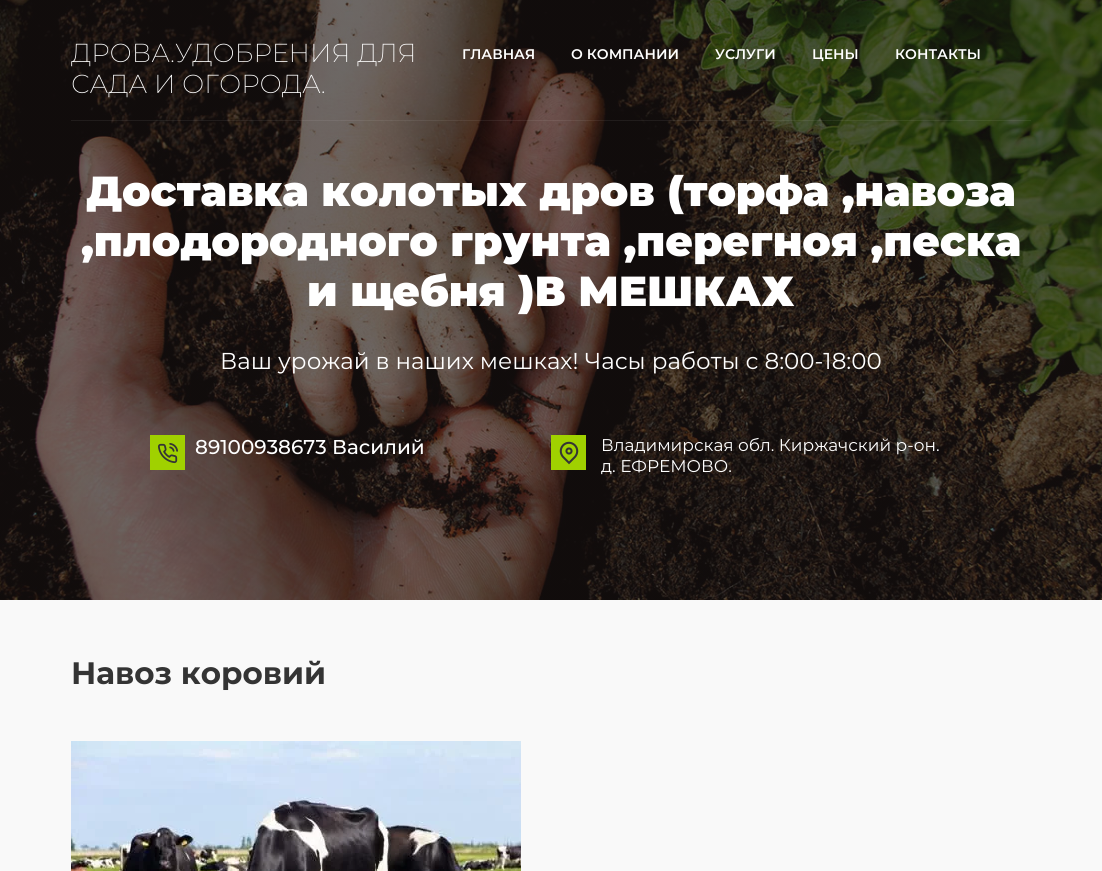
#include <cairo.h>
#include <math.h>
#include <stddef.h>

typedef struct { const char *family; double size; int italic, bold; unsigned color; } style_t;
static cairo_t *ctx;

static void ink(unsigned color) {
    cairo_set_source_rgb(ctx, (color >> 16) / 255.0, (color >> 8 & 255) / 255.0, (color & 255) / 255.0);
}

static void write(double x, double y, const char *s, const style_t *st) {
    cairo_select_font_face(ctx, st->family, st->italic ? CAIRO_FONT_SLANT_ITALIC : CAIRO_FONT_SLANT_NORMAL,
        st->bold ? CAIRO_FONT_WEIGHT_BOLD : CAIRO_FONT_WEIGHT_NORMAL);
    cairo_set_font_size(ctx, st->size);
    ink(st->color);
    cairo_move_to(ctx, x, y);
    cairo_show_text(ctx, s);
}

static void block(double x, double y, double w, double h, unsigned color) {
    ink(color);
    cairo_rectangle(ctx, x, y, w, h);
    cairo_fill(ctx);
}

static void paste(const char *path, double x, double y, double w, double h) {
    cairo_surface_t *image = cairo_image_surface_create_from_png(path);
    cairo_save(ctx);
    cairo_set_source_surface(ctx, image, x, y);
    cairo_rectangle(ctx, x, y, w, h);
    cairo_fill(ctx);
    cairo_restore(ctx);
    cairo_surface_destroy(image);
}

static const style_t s1 = {"Montserrat ExtraLight", 26, 0, 0, 0xffffff};
static const style_t s2 = {"Montserrat SemiBold", 14, 0, 0, 0xffffff};
static const style_t s3 = {"Montserrat Black", 42, 0, 0, 0xffffff};
static const style_t s4 = {"Montserrat", 23, 0, 0, 0xffffff};
static const style_t s5 = {"Montserrat Medium", 20, 0, 0, 0xffffff};
static const style_t s6 = {"Montserrat", 17, 0, 0, 0xffffff};
static const style_t s7 = {"Montserrat", 31, 0, 1, 0x343434};

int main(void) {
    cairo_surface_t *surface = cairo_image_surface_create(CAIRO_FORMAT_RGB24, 1102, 871);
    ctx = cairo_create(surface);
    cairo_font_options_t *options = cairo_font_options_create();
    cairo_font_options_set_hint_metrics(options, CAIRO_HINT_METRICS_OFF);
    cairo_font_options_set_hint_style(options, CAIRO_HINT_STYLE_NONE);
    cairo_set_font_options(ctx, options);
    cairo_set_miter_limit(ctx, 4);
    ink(0xf9f9f9);
    cairo_paint(ctx);
    paste("pic1.png", 0, 0, 1102, 600);
    cairo_set_source_rgba(ctx, 1, 1, 1, 0.07);
    cairo_rectangle(ctx, 71, 120, 960, 1);
    cairo_fill(ctx);
    write(71, 62, "ДРОВА.УДОБРЕНИЯ ДЛЯ", &s1);
    write(71, 93, "САДА И ОГОРОДА.", &s1);
    write(462, 59, "ГЛАВНАЯ", &s2);
    write(571, 59, "О КОМПАНИИ", &s2);
    write(715, 59, "УСЛУГИ", &s2);
    write(812, 59, "ЦЕНЫ", &s2);
    write(895, 59, "КОНТАКТЫ", &s2);
    write(86, 206, "Доставка колотых дров (торфа ,навоза", &s3);
    write(81, 256, ",плодородного грунта ,перегноя ,песка", &s3);
    write(307, 306, "и щебня )В МЕШКАХ", &s3);
    write(220, 369, "Ваш урожай в наших мешках! Часы работы с 8:00-18:00", &s4);
    block(150, 435, 35, 35, 0xa0d100);
    paste("pic2.png", 158, 443, 20, 21);
    write(195, 454, "89100938673 Василий", &s5);
    block(551, 435, 35, 35, 0xa0d100);
    paste("pic3.png", 559, 441, 20, 24);
    write(601, 451, "Владимирская обл. Киржачский р-он.", &s6);
    write(601, 472, "д. ЕФРЕМОВО.", &s6);
    write(71, 684, "Навоз коровий", &s7);
    paste("pic4.png", 71, 741, 450, 130);
    cairo_surface_write_to_png(surface, "screenshot.png");
    cairo_font_options_destroy(options);
    cairo_destroy(ctx);
    cairo_surface_destroy(surface);
    return 0;
}
